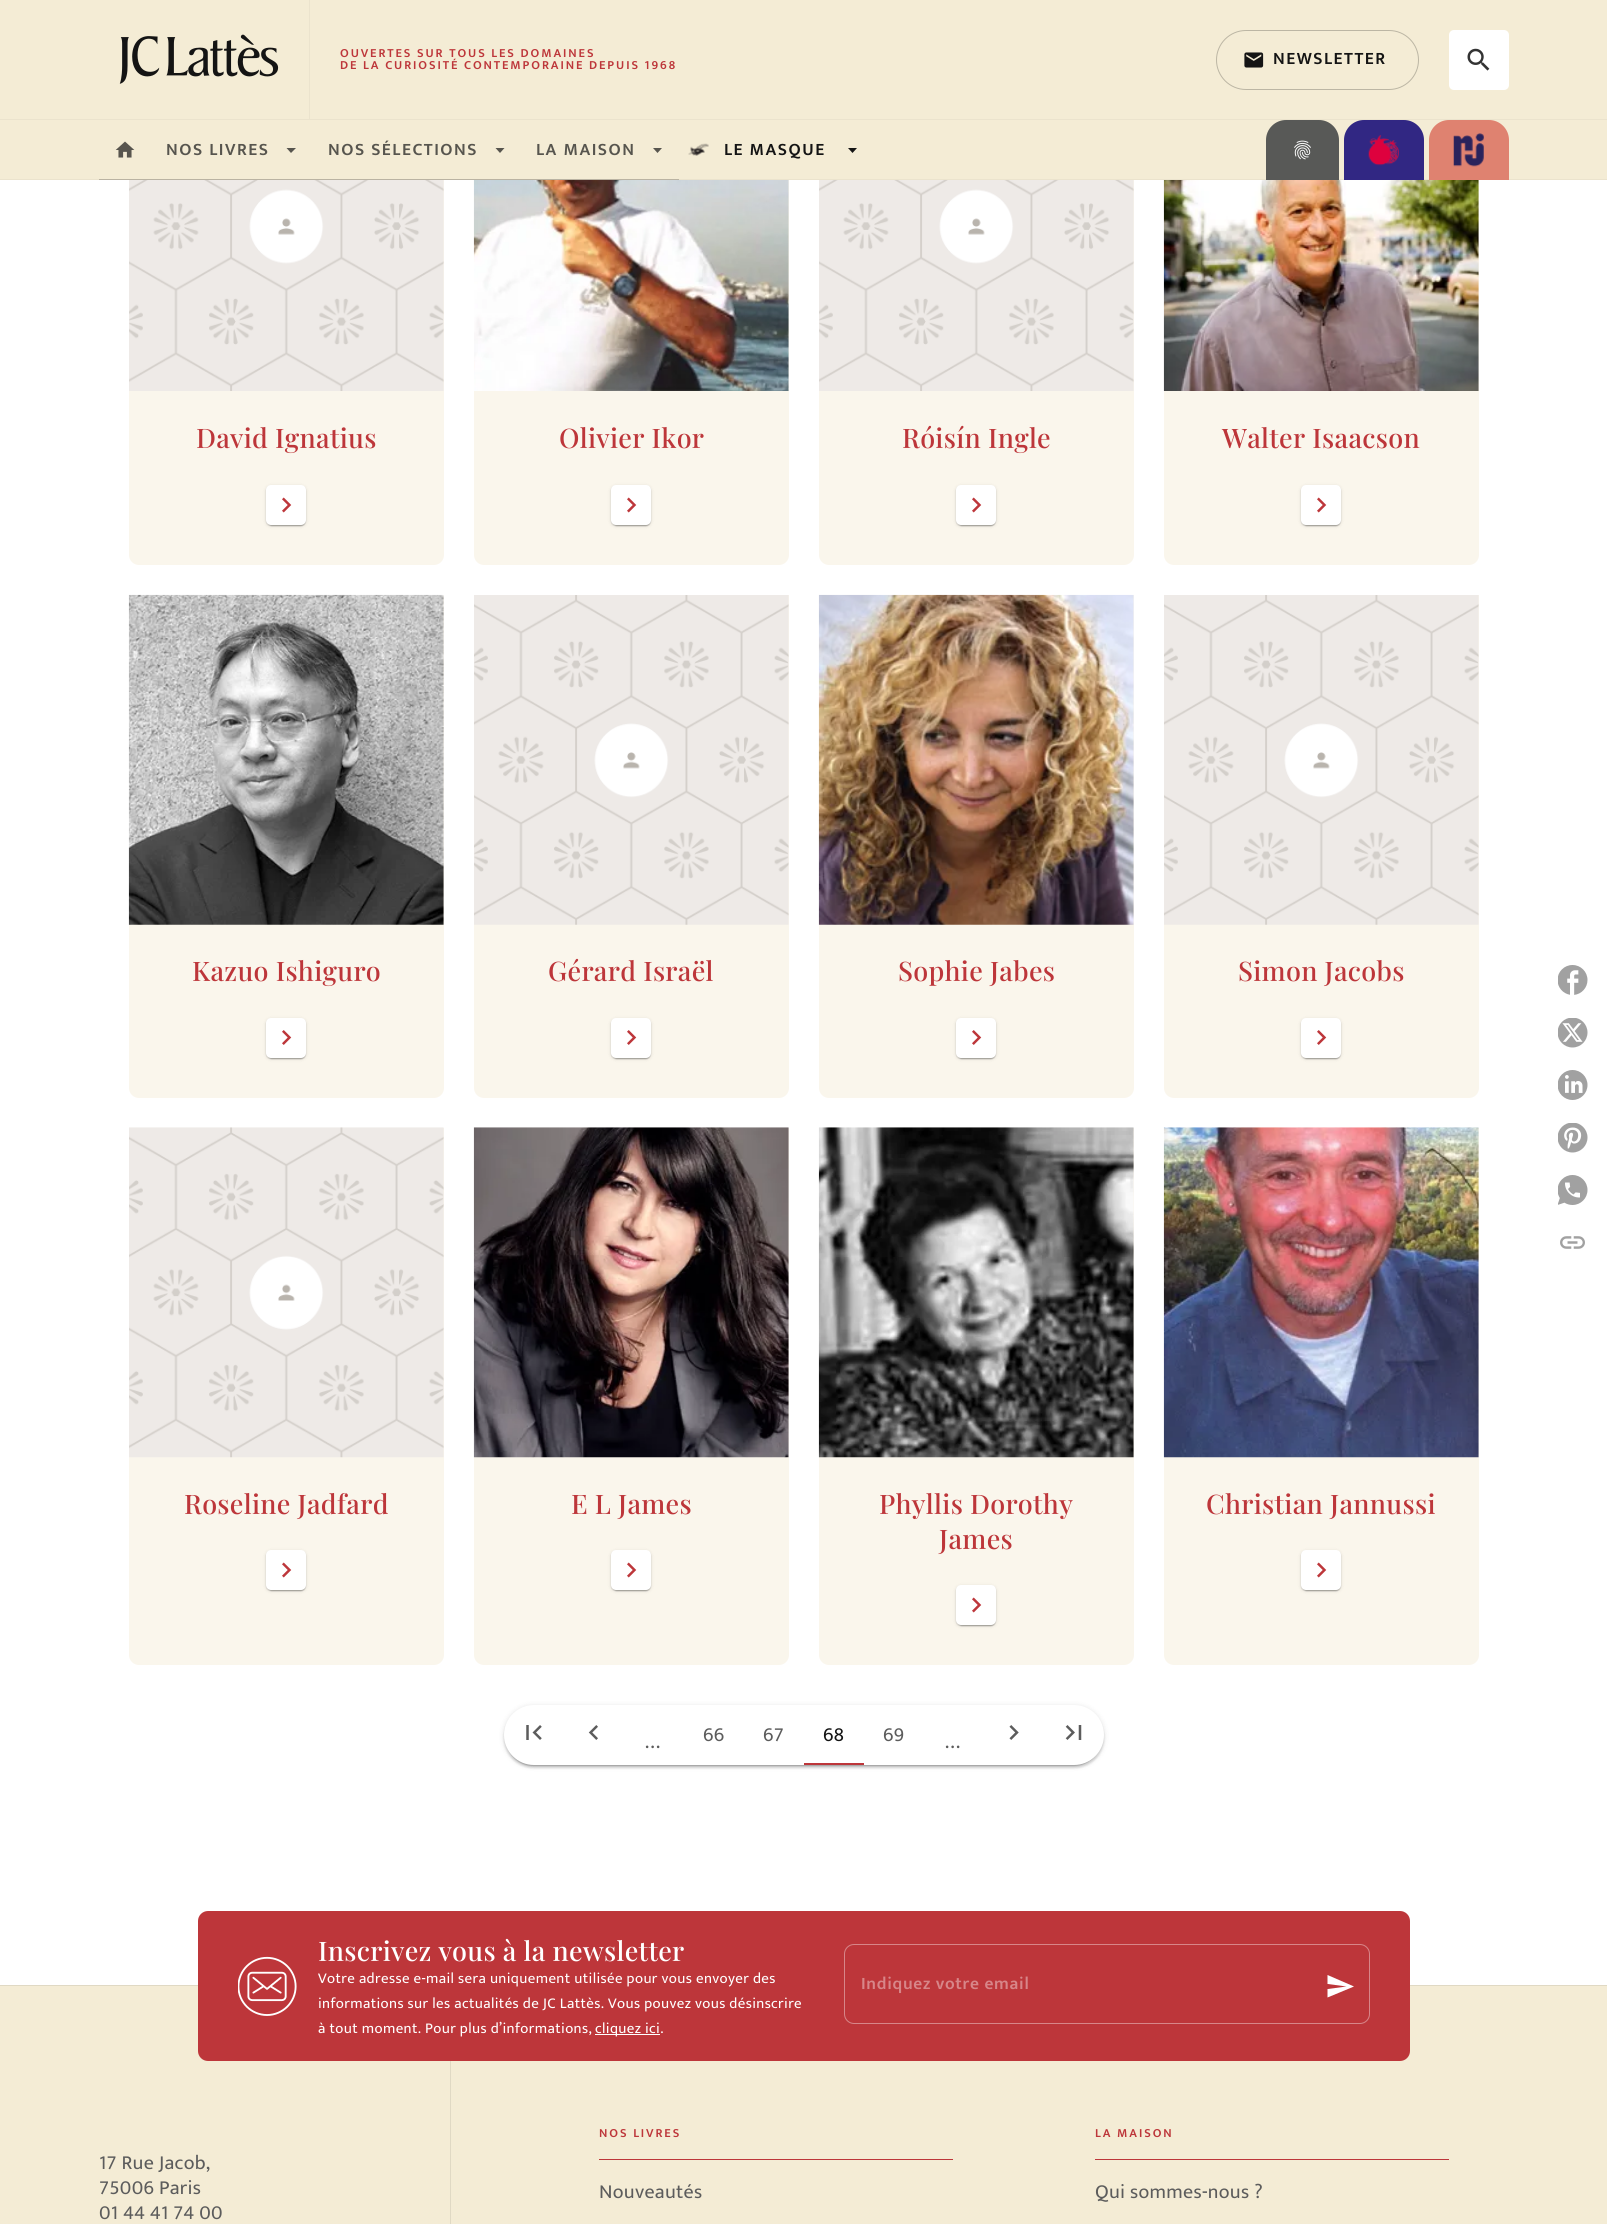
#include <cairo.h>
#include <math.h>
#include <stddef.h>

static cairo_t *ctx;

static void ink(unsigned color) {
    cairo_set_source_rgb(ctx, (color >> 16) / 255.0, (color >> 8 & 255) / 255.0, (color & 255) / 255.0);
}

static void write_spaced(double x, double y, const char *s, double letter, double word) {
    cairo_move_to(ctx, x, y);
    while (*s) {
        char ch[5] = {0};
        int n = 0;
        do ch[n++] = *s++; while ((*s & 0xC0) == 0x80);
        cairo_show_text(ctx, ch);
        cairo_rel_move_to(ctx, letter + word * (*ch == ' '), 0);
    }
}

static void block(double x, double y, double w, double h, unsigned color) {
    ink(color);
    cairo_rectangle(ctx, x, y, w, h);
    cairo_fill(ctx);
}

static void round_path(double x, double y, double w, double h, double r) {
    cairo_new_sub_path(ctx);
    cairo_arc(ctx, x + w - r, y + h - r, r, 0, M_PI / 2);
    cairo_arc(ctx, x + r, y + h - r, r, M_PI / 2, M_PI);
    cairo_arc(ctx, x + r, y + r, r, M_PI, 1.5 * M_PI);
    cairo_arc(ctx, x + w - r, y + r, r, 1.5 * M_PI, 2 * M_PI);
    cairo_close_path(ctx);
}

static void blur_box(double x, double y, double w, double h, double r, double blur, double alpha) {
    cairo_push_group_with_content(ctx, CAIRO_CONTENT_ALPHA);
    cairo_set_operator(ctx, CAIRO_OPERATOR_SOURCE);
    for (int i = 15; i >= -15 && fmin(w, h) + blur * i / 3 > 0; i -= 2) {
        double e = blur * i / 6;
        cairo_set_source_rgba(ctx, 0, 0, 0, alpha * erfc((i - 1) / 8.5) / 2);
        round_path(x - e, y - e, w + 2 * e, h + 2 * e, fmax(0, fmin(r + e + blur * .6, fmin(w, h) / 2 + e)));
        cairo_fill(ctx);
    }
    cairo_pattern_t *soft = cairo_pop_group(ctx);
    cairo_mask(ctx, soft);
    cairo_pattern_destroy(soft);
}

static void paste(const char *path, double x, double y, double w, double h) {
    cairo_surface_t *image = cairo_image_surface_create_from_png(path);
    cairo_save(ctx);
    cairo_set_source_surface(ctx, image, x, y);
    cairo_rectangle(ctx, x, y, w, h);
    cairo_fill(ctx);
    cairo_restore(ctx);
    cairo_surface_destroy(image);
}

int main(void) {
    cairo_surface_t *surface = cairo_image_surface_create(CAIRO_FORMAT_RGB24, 1607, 2224);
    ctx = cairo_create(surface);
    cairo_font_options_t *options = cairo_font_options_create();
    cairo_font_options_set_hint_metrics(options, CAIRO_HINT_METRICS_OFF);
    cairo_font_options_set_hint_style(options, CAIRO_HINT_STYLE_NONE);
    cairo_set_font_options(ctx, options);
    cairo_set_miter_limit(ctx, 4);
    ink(0xffffff);
    cairo_paint(ctx);
    ink(0xfaf6ec);
    cairo_new_path(ctx);
    cairo_move_to(ctx, 129, 61);
    cairo_line_to(ctx, 444, 61);
    cairo_line_to(ctx, 444, 555);
    cairo_curve_to(ctx, 444, 560.5, 439.5, 565, 434, 565);
    cairo_line_to(ctx, 139, 565);
    cairo_curve_to(ctx, 133.5, 565, 129, 560.5, 129, 555);
    cairo_close_path(ctx);
    cairo_fill(ctx);
    cairo_new_path(ctx);
    cairo_move_to(ctx, 474, 61);
    cairo_line_to(ctx, 789, 61);
    cairo_line_to(ctx, 789, 555);
    cairo_curve_to(ctx, 789, 560.5, 784.5, 565, 779, 565);
    cairo_line_to(ctx, 484, 565);
    cairo_curve_to(ctx, 478.5, 565, 474, 560.5, 474, 555);
    cairo_close_path(ctx);
    cairo_fill(ctx);
    cairo_new_path(ctx);
    cairo_move_to(ctx, 819, 61);
    cairo_line_to(ctx, 1134, 61);
    cairo_line_to(ctx, 1134, 555);
    cairo_curve_to(ctx, 1134, 560.5, 1129.5, 565, 1124, 565);
    cairo_line_to(ctx, 829, 565);
    cairo_curve_to(ctx, 823.5, 565, 819, 560.5, 819, 555);
    cairo_close_path(ctx);
    cairo_fill(ctx);
    cairo_new_path(ctx);
    cairo_move_to(ctx, 1164, 61);
    cairo_line_to(ctx, 1479, 61);
    cairo_line_to(ctx, 1479, 555);
    cairo_curve_to(ctx, 1479, 560.5, 1474.5, 565, 1469, 565);
    cairo_line_to(ctx, 1174, 565);
    cairo_curve_to(ctx, 1168.5, 565, 1164, 560.5, 1164, 555);
    cairo_close_path(ctx);
    cairo_fill(ctx);
    block(0, 0, 1607, 119, 0xf4ecd5);
    block(0, 119, 1607, 1, 0xebe3cd);
    block(309, 0, 1, 119, 0xebe3cd);
    paste("pic1.png", 119, 34, 160, 50);
    cairo_select_font_face(ctx, "Mukta SemiBold", CAIRO_FONT_SLANT_NORMAL, CAIRO_FONT_WEIGHT_NORMAL);
    cairo_set_font_size(ctx, 12.5);
    ink(0xbd363a);
    write_spaced(340, 57, "OUVERTES SUR TOUS LES DOMAINES", 1.9, 0);
    write_spaced(340, 69, "DE LA CURIOSITÉ CONTEMPORAINE DEPUIS 1968", 1.9, 0);
    round_path(1216.5, 30.5, 202, 59, 29.5);
    ink(0xbcb6a4);
    cairo_set_line_width(ctx, 1);
    cairo_stroke(ctx);
    paste("pic2.png", 1244, 52, 20, 16);
    cairo_set_font_size(ctx, 17.5);
    ink(0x141414);
    write_spaced(1273, 64, "NEWSLETTER", 1.5, 0);
    ink(0xffffff);
    round_path(1449, 30, 60, 60, 5);
    cairo_fill(ctx);
    paste("pic3.png", 1467, 48, 23, 23);
    block(0, 120, 1607, 59, 0xf4ecd5);
    ink(0x57554e);
    write_spaced(328, 155, "NOS SÉLECTIONS", 1.5, 0);
    cairo_new_path(ctx);
    cairo_move_to(ctx, 495.5, 148);
    cairo_line_to(ctx, 504.5, 148);
    cairo_line_to(ctx, 500, 153);
    cairo_close_path(ctx);
    cairo_fill(ctx);
    block(0, 179, 1607, 1, 0xebe3cd);
    ink(0x585957);
    cairo_new_path(ctx);
    cairo_move_to(ctx, 1286, 120);
    cairo_line_to(ctx, 1319, 120);
    cairo_curve_to(ctx, 1330, 120, 1339, 129, 1339, 140);
    cairo_line_to(ctx, 1339, 180);
    cairo_line_to(ctx, 1266, 180);
    cairo_line_to(ctx, 1266, 140);
    cairo_curve_to(ctx, 1266, 129, 1275, 120, 1286, 120);
    cairo_close_path(ctx);
    cairo_fill(ctx);
    paste("pic4.png", 1294, 140, 17, 20);
    ink(0x312783);
    cairo_new_path(ctx);
    cairo_move_to(ctx, 1364, 120);
    cairo_line_to(ctx, 1404, 120);
    cairo_curve_to(ctx, 1415, 120, 1424, 129, 1424, 140);
    cairo_line_to(ctx, 1424, 180);
    cairo_line_to(ctx, 1344, 180);
    cairo_line_to(ctx, 1344, 140);
    cairo_curve_to(ctx, 1344, 129, 1353, 120, 1364, 120);
    cairo_close_path(ctx);
    cairo_fill(ctx);
    paste("pic5.png", 1368, 135, 31, 31);
    ink(0xdf8270);
    cairo_new_path(ctx);
    cairo_move_to(ctx, 1449, 120);
    cairo_line_to(ctx, 1489, 120);
    cairo_curve_to(ctx, 1500, 120, 1509, 129, 1509, 140);
    cairo_line_to(ctx, 1509, 180);
    cairo_line_to(ctx, 1429, 180);
    cairo_line_to(ctx, 1429, 140);
    cairo_curve_to(ctx, 1429, 129, 1438, 120, 1449, 120);
    cairo_close_path(ctx);
    cairo_fill(ctx);
    paste("pic6.png", 1453, 133, 31, 34);
    paste("pic7.png", 115, 141, 20, 17);
    block(99, 179, 580, 1, 0xbab3a2);
    ink(0x57554e);
    write_spaced(166, 155, "NOS LIVRES", 1.5, 0);
    cairo_new_path(ctx);
    cairo_move_to(ctx, 286.5, 148);
    cairo_line_to(ctx, 296, 148);
    cairo_line_to(ctx, 291, 153);
    cairo_close_path(ctx);
    cairo_fill(ctx);
    write_spaced(536, 155, "LA MAISON", 1.5, 0);
    cairo_new_path(ctx);
    cairo_move_to(ctx, 653, 148);
    cairo_line_to(ctx, 662, 148);
    cairo_line_to(ctx, 657.5, 153);
    cairo_close_path(ctx);
    cairo_fill(ctx);
    paste("pic8.png", 688, 143, 21, 13);
    ink(0x141414);
    write_spaced(724, 155, "LE MASQUE", 1.5, 0);
    cairo_new_path(ctx);
    cairo_move_to(ctx, 848, 148);
    cairo_line_to(ctx, 857, 148);
    cairo_line_to(ctx, 852.5, 153);
    cairo_close_path(ctx);
    cairo_fill(ctx);
    paste("pic9.png", 129, 180, 315, 211);
    cairo_select_font_face(ctx, "Playfair Display Medium", CAIRO_FONT_SLANT_NORMAL, CAIRO_FONT_WEIGHT_NORMAL);
    cairo_set_font_size(ctx, 26.9);
    ink(0xbd363a);
    write_spaced(196, 448, "David Ignatius", 0.3, 0);
    ink(0x000000);
    blur_box(266, 486, 40, 40, 5, 2, 0.12);
    blur_box(266, 486, 40, 40, 5, 0.5, 0.14);
    blur_box(268, 489, 37, 37, 4, 0.5, 0.2);
    ink(0xffffff);
    round_path(266, 485, 40, 40, 5);
    cairo_fill(ctx);
    paste("pic10.png", 282, 497, 10, 16);
    paste("pic11.png", 473, 180, 316, 211);
    ink(0xbd363a);
    write_spaced(559, 448, "Olivier Ikor", 0.3, 0);
    ink(0x000000);
    blur_box(611, 486, 40, 40, 5, 2, 0.12);
    blur_box(611, 486, 40, 40, 5, 0.5, 0.14);
    blur_box(613, 489, 37, 37, 4, 0.5, 0.2);
    ink(0xffffff);
    round_path(611, 485, 40, 40, 5);
    cairo_fill(ctx);
    paste("pic10.png", 627, 497, 10, 16);
    paste("pic12.png", 819, 180, 315, 211);
    ink(0xbd363a);
    write_spaced(902, 448, "Róisín Ingle", 0.3, 0);
    ink(0x000000);
    blur_box(956, 486, 40, 40, 5, 2, 0.12);
    blur_box(956, 486, 40, 40, 5, 0.5, 0.14);
    blur_box(958, 489, 37, 37, 4, 0.5, 0.2);
    ink(0xffffff);
    round_path(956, 485, 40, 40, 5);
    cairo_fill(ctx);
    paste("pic10.png", 972, 497, 10, 16);
    paste("pic13.png", 1163, 180, 316, 211);
    ink(0xbd363a);
    write_spaced(1222, 448, "Walter Isaacson", 0.3, 0);
    ink(0x000000);
    blur_box(1301, 486, 40, 40, 5, 2, 0.12);
    blur_box(1301, 486, 40, 40, 5, 0.5, 0.14);
    blur_box(1303, 489, 37, 37, 4, 0.5, 0.2);
    ink(0xffffff);
    round_path(1301, 485, 40, 40, 5);
    cairo_fill(ctx);
    paste("pic10.png", 1317, 497, 10, 16);
    ink(0xfaf6ec);
    cairo_new_path(ctx);
    cairo_move_to(ctx, 129, 595);
    cairo_line_to(ctx, 444, 595);
    cairo_line_to(ctx, 444, 1088);
    cairo_curve_to(ctx, 444, 1093.5, 439.5, 1098, 434, 1098);
    cairo_line_to(ctx, 139, 1098);
    cairo_curve_to(ctx, 133.5, 1098, 129, 1093.5, 129, 1088);
    cairo_close_path(ctx);
    cairo_fill(ctx);
    paste("pic14.png", 128, 594, 316, 331);
    ink(0xbd363a);
    write_spaced(192, 981, "Kazuo Ishiguro", 0.3, 0);
    ink(0x000000);
    blur_box(266, 1019, 40, 40, 5, 2, 0.12);
    blur_box(266, 1019, 40, 40, 5, 0.5, 0.14);
    blur_box(268, 1021, 37, 38, 4, 0.5, 0.2);
    ink(0xffffff);
    round_path(266, 1018, 40, 40, 5);
    cairo_fill(ctx);
    paste("pic15.png", 282, 1030, 10, 15);
    ink(0xfaf6ec);
    cairo_new_path(ctx);
    cairo_move_to(ctx, 474, 595);
    cairo_line_to(ctx, 789, 595);
    cairo_line_to(ctx, 789, 1088);
    cairo_curve_to(ctx, 789, 1093.5, 784.5, 1098, 779, 1098);
    cairo_line_to(ctx, 484, 1098);
    cairo_curve_to(ctx, 478.5, 1098, 474, 1093.5, 474, 1088);
    cairo_close_path(ctx);
    cairo_fill(ctx);
    paste("pic16.png", 474, 595, 315, 330);
    ink(0xbd363a);
    write_spaced(548, 981, "Gérard Israël", 0.3, 0);
    ink(0x000000);
    blur_box(611, 1019, 40, 40, 5, 2, 0.12);
    blur_box(611, 1019, 40, 40, 5, 0.5, 0.14);
    blur_box(613, 1021, 37, 38, 4, 0.5, 0.2);
    ink(0xffffff);
    round_path(611, 1018, 40, 40, 5);
    cairo_fill(ctx);
    paste("pic15.png", 627, 1030, 10, 15);
    ink(0xfaf6ec);
    cairo_new_path(ctx);
    cairo_move_to(ctx, 819, 595);
    cairo_line_to(ctx, 1134, 595);
    cairo_line_to(ctx, 1134, 1088);
    cairo_curve_to(ctx, 1134, 1093.5, 1129.5, 1098, 1124, 1098);
    cairo_line_to(ctx, 829, 1098);
    cairo_curve_to(ctx, 823.5, 1098, 819, 1093.5, 819, 1088);
    cairo_close_path(ctx);
    cairo_fill(ctx);
    paste("pic17.png", 818, 594, 316, 331);
    ink(0xbd363a);
    write_spaced(898, 981, "Sophie Jabes", 0.3, 0);
    ink(0x000000);
    blur_box(956, 1019, 40, 40, 5, 2, 0.12);
    blur_box(956, 1019, 40, 40, 5, 0.5, 0.14);
    blur_box(958, 1021, 37, 38, 4, 0.5, 0.2);
    ink(0xffffff);
    round_path(956, 1018, 40, 40, 5);
    cairo_fill(ctx);
    paste("pic15.png", 972, 1030, 10, 15);
    ink(0xfaf6ec);
    cairo_new_path(ctx);
    cairo_move_to(ctx, 1164, 595);
    cairo_line_to(ctx, 1479, 595);
    cairo_line_to(ctx, 1479, 1088);
    cairo_curve_to(ctx, 1479, 1093.5, 1474.5, 1098, 1469, 1098);
    cairo_line_to(ctx, 1174, 1098);
    cairo_curve_to(ctx, 1168.5, 1098, 1164, 1093.5, 1164, 1088);
    cairo_close_path(ctx);
    cairo_fill(ctx);
    paste("pic18.png", 1164, 595, 315, 330);
    ink(0xbd363a);
    write_spaced(1238, 981, "Simon Jacobs", 0.3, 0);
    ink(0x000000);
    blur_box(1301, 1019, 40, 40, 5, 2, 0.12);
    blur_box(1301, 1019, 40, 40, 5, 0.5, 0.14);
    blur_box(1303, 1021, 37, 38, 4, 0.5, 0.2);
    ink(0xffffff);
    round_path(1301, 1018, 40, 40, 5);
    cairo_fill(ctx);
    paste("pic15.png", 1317, 1030, 10, 15);
    ink(0xfaf6ec);
    cairo_new_path(ctx);
    cairo_move_to(ctx, 129, 1128);
    cairo_line_to(ctx, 444, 1128);
    cairo_line_to(ctx, 444, 1655);
    cairo_curve_to(ctx, 444, 1660.5, 439.5, 1665, 434, 1665);
    cairo_line_to(ctx, 139, 1665);
    cairo_curve_to(ctx, 133.5, 1665, 129, 1660.5, 129, 1655);
    cairo_close_path(ctx);
    cairo_fill(ctx);
    paste("pic19.png", 129, 1127, 315, 331);
    ink(0xbd363a);
    write_spaced(184, 1514, "Roseline Jadfard", 0.3, 0);
    ink(0x000000);
    blur_box(266, 1551, 40, 40, 5, 2, 0.12);
    blur_box(266, 1551, 40, 40, 5, 0.5, 0.14);
    blur_box(268, 1554, 37, 37, 4, 0.5, 0.2);
    ink(0xffffff);
    round_path(266, 1550, 40, 40, 5);
    cairo_fill(ctx);
    paste("pic10.png", 282, 1562, 10, 16);
    ink(0xfaf6ec);
    cairo_new_path(ctx);
    cairo_move_to(ctx, 474, 1128);
    cairo_line_to(ctx, 789, 1128);
    cairo_line_to(ctx, 789, 1655);
    cairo_curve_to(ctx, 789, 1660.5, 784.5, 1665, 779, 1665);
    cairo_line_to(ctx, 484, 1665);
    cairo_curve_to(ctx, 478.5, 1665, 474, 1660.5, 474, 1655);
    cairo_close_path(ctx);
    cairo_fill(ctx);
    paste("pic20.png", 473, 1127, 316, 331);
    ink(0xbd363a);
    write_spaced(571, 1514, "E L James", 0.3, 0);
    ink(0x000000);
    blur_box(611, 1551, 40, 40, 5, 2, 0.12);
    blur_box(611, 1551, 40, 40, 5, 0.5, 0.14);
    blur_box(613, 1554, 37, 37, 4, 0.5, 0.2);
    ink(0xffffff);
    round_path(611, 1550, 40, 40, 5);
    cairo_fill(ctx);
    paste("pic10.png", 627, 1562, 10, 16);
    ink(0xfaf6ec);
    cairo_new_path(ctx);
    cairo_move_to(ctx, 819, 1128);
    cairo_line_to(ctx, 1134, 1128);
    cairo_line_to(ctx, 1134, 1655);
    cairo_curve_to(ctx, 1134, 1660.5, 1129.5, 1665, 1124, 1665);
    cairo_line_to(ctx, 829, 1665);
    cairo_curve_to(ctx, 823.5, 1665, 819, 1660.5, 819, 1655);
    cairo_close_path(ctx);
    cairo_fill(ctx);
    paste("pic21.png", 818, 1127, 316, 331);
    ink(0xbd363a);
    write_spaced(879, 1514, "Phyllis Dorothy", 0.3, 0);
    write_spaced(939, 1549, "James", 0.3, 0);
    ink(0x000000);
    blur_box(956, 1586, 40, 40, 5, 2, 0.12);
    blur_box(956, 1586, 40, 40, 5, 0.5, 0.14);
    blur_box(958, 1589, 37, 37, 4, 0.5, 0.2);
    ink(0xffffff);
    round_path(956, 1585, 40, 40, 5);
    cairo_fill(ctx);
    paste("pic10.png", 972, 1597, 10, 16);
    ink(0xfaf6ec);
    cairo_new_path(ctx);
    cairo_move_to(ctx, 1164, 1128);
    cairo_line_to(ctx, 1479, 1128);
    cairo_line_to(ctx, 1479, 1655);
    cairo_curve_to(ctx, 1479, 1660.5, 1474.5, 1665, 1469, 1665);
    cairo_line_to(ctx, 1174, 1665);
    cairo_curve_to(ctx, 1168.5, 1665, 1164, 1660.5, 1164, 1655);
    cairo_close_path(ctx);
    cairo_fill(ctx);
    paste("pic22.png", 1163, 1127, 316, 331);
    ink(0xbd363a);
    write_spaced(1206, 1514, "Christian Jannussi", 0.3, 0);
    ink(0x000000);
    blur_box(1301, 1551, 40, 40, 5, 2, 0.12);
    blur_box(1301, 1551, 40, 40, 5, 0.5, 0.14);
    blur_box(1303, 1554, 37, 37, 4, 0.5, 0.2);
    ink(0xffffff);
    round_path(1301, 1550, 40, 40, 5);
    cairo_fill(ctx);
    paste("pic10.png", 1317, 1562, 10, 16);
    ink(0x000000);
    blur_box(504, 1706, 600, 60, 30, 3, 0.12);
    blur_box(504, 1708, 600, 60, 30, 1, 0.14);
    blur_box(506, 1711, 595, 55, 27.5, 0.5, 0.2);
    ink(0xffffff);
    round_path(504, 1705, 600, 60, 30);
    cairo_fill(ctx);
    paste("pic23.png", 526, 1725, 16, 15);
    paste("pic24.png", 588, 1725, 10, 15);
    cairo_select_font_face(ctx, "Mukta", CAIRO_FONT_SLANT_NORMAL, CAIRO_FONT_WEIGHT_NORMAL);
    cairo_set_font_size(ctx, 20);
    ink(0x5c5c5c);
    write_spaced(703, 1741, "66", 0.3, 0);
    write_spaced(763, 1741, "67", 0.3, 0);
    block(804, 1763, 60, 2, 0xbd363a);
    ink(0x141414);
    write_spaced(823, 1741, "68", 0.3, 0);
    ink(0x5c5c5c);
    write_spaced(883, 1741, "69", 0.3, 0);
    paste("pic25.png", 1009, 1725, 10, 15);
    paste("pic26.png", 1065, 1725, 17, 15);
    cairo_select_font_face(ctx, "Mukta SemiBold", CAIRO_FONT_SLANT_NORMAL, CAIRO_FONT_WEIGHT_NORMAL);
    cairo_set_font_size(ctx, 17.5);
    write_spaced(645, 1748, "...", 1.5, 0);
    write_spaced(945, 1748, "...", 1.5, 0);
    paste("pic27.png", 1558, 965, 30, 30);
    paste("pic28.png", 1558, 1018, 30, 30);
    paste("pic29.png", 1558, 1070, 30, 30);
    paste("pic30.png", 1558, 1123, 30, 30);
    paste("pic31.png", 1558, 1175, 30, 30);
    paste("pic32.png", 1560, 1236, 25, 13);
    block(0, 1986, 1607, 238, 0xf4ecd5);
    block(0, 1985, 1607, 1, 0xe0d9c4);
    ink(0xbd363a);
    round_path(198, 1911, 1212, 150, 10);
    cairo_fill(ctx);
    paste("pic33.png", 238, 1956, 59, 60);
    cairo_select_font_face(ctx, "Playfair Display Medium", CAIRO_FONT_SLANT_NORMAL, CAIRO_FONT_WEIGHT_NORMAL);
    cairo_set_font_size(ctx, 26.9);
    ink(0xffffff);
    write_spaced(318, 1961, "Inscrivez vous à la newsletter", 0.3, 0);
    cairo_select_font_face(ctx, "Mukta", CAIRO_FONT_SLANT_NORMAL, CAIRO_FONT_WEIGHT_NORMAL);
    cairo_set_font_size(ctx, 15);
    write_spaced(318, 1983, "Votre adresse e-mail sera uniquement utilisée pour vous envoyer des", 0.38, 0);
    write_spaced(318, 2008, "informations sur les actualités de JC Lattès. Vous pouvez vous désinscrire", 0.38, 0);
    write_spaced(318, 2033, "à tout moment. Pour plus d’informations,", 0.38, 0);
    block(595, 2034, 65, 1, 0xffffff);
    write_spaced(595, 2033, "cliquez ici.", 0.38, 0);
    round_path(844.5, 1944.5, 525, 79, 9.5);
    ink(0xd78689);
    cairo_stroke(ctx);
    cairo_select_font_face(ctx, "Mukta SemiBold", CAIRO_FONT_SLANT_NORMAL, CAIRO_FONT_WEIGHT_NORMAL);
    cairo_set_font_size(ctx, 17.5);
    write_spaced(861, 1989, "Indiquez votre email", 0.7, 0);
    ink(0xffffff);
    cairo_new_path(ctx);
    cairo_move_to(ctx, 1327.5, 1997.5);
    cairo_line_to(ctx, 1327.5, 1989);
    cairo_line_to(ctx, 1346.5, 1986.5);
    cairo_line_to(ctx, 1327.5, 1984);
    cairo_line_to(ctx, 1327.5, 1975);
    cairo_line_to(ctx, 1354, 1986.5);
    cairo_close_path(ctx);
    cairo_fill(ctx);
    block(450, 2061, 1, 163, 0xe0d9c4);
    cairo_select_font_face(ctx, "Mukta", CAIRO_FONT_SLANT_NORMAL, CAIRO_FONT_WEIGHT_NORMAL);
    cairo_set_font_size(ctx, 20);
    ink(0x5c5c5c);
    write_spaced(99, 2169, "17 Rue Jacob,", 0.3, 0);
    write_spaced(99, 2194, "75006 Paris", 0.3, 0);
    write_spaced(99, 2219, "01 44 41 74 00", 0.3, 0);
    block(599, 2159, 354, 1, 0xbd363a);
    cairo_select_font_face(ctx, "Mukta SemiBold", CAIRO_FONT_SLANT_NORMAL, CAIRO_FONT_WEIGHT_NORMAL);
    cairo_set_font_size(ctx, 12.5);
    write_spaced(599, 2137, "NOS LIVRES", 1.9, 0);
    cairo_select_font_face(ctx, "Mukta", CAIRO_FONT_SLANT_NORMAL, CAIRO_FONT_WEIGHT_NORMAL);
    cairo_set_font_size(ctx, 20);
    ink(0x5c5c5c);
    write_spaced(599, 2198, "Nouveautés", 0.3, 0);
    block(1095, 2159, 354, 1, 0xbd363a);
    cairo_select_font_face(ctx, "Mukta SemiBold", CAIRO_FONT_SLANT_NORMAL, CAIRO_FONT_WEIGHT_NORMAL);
    cairo_set_font_size(ctx, 12.5);
    write_spaced(1095, 2137, "LA MAISON", 1.9, 0);
    cairo_select_font_face(ctx, "Mukta", CAIRO_FONT_SLANT_NORMAL, CAIRO_FONT_WEIGHT_NORMAL);
    cairo_set_font_size(ctx, 20);
    ink(0x5c5c5c);
    write_spaced(1095, 2198, "Qui sommes-nous ?", 0.3, 0);
    cairo_surface_write_to_png(surface, "screenshot.png");
    cairo_font_options_destroy(options);
    cairo_destroy(ctx);
    cairo_surface_destroy(surface);
    return 0;
}
